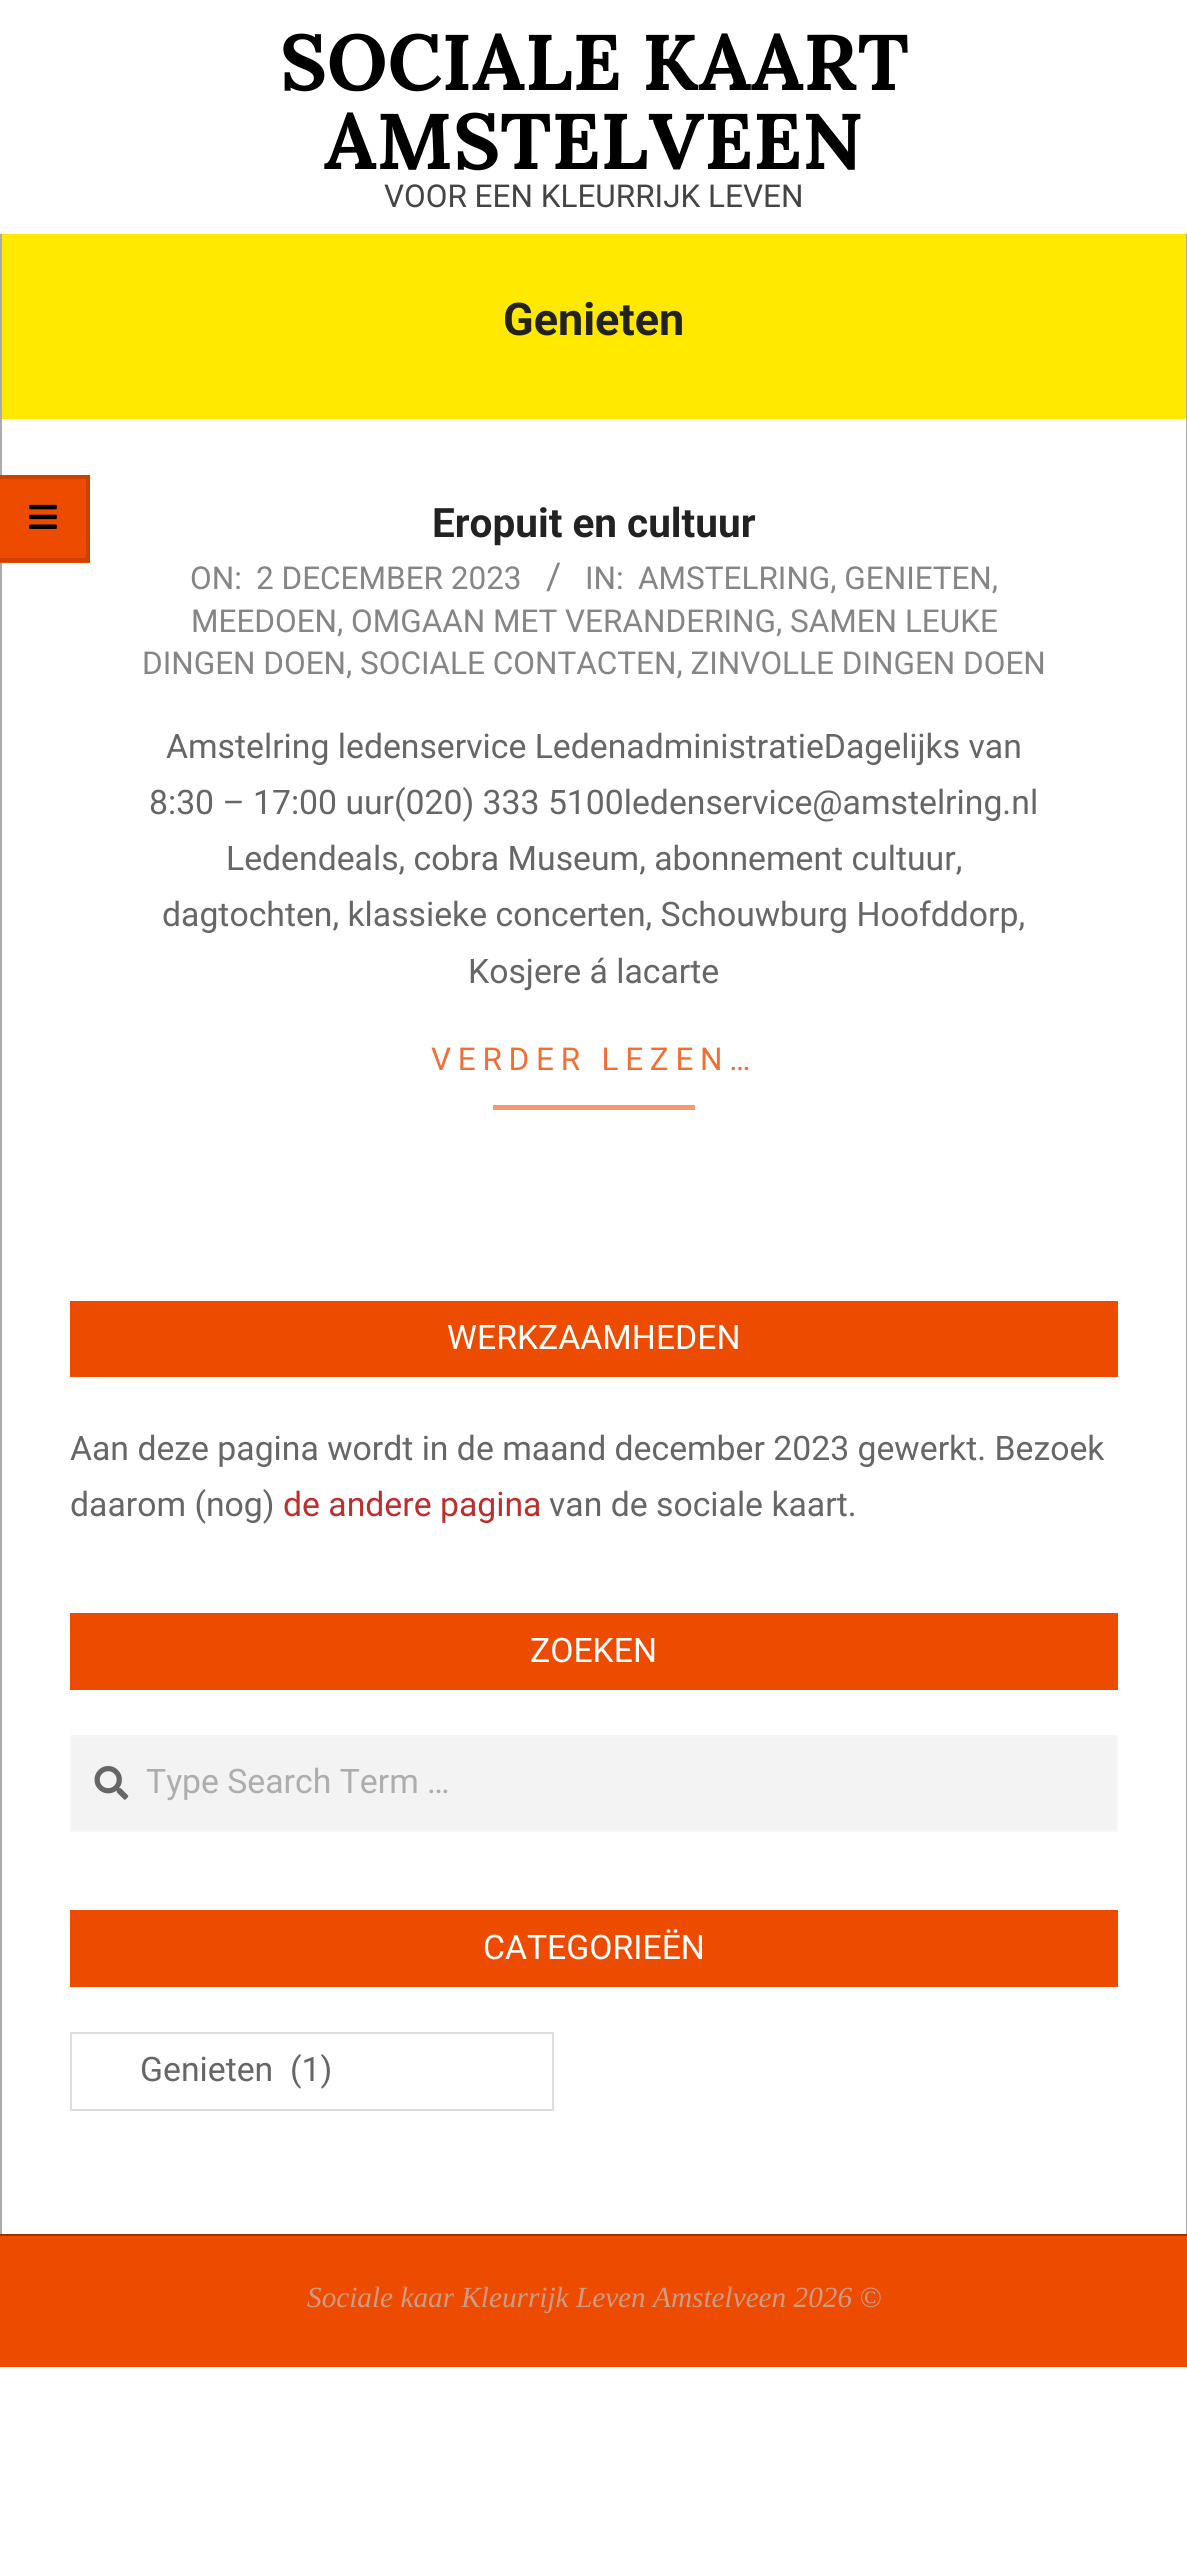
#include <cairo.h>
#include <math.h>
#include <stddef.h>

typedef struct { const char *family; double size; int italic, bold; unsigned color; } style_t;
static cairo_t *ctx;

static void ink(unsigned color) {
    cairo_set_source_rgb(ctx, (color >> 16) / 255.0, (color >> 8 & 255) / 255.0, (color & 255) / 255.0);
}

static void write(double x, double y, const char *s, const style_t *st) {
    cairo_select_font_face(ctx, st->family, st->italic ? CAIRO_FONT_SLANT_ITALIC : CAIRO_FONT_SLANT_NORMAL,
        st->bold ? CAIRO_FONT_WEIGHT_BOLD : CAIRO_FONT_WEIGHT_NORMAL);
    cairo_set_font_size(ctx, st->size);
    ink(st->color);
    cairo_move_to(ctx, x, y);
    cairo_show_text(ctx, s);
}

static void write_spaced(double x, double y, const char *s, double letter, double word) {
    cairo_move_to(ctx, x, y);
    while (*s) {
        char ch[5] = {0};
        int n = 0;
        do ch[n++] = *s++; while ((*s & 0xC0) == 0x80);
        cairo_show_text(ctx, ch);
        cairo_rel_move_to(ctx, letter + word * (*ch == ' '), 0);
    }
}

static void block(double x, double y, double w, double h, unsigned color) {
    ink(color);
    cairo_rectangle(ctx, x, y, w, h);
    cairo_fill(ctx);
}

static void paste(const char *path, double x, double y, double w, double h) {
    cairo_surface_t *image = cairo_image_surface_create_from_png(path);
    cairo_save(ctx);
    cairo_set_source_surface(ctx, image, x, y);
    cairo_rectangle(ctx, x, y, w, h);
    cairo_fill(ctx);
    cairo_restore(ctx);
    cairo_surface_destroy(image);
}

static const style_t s1 = {"Lora", 78.75, 0, 1, 0x000000};
static const style_t s2 = {"Roboto", 31.5, 0, 0, 0x444444};
static const style_t s3 = {"Roboto", 45, 0, 1, 0x222222};
static const style_t s4 = {"Roboto", 40.5, 0, 1, 0x222222};
static const style_t s5 = {"Roboto", 31.5, 0, 0, 0x858585};
static const style_t s6 = {"Roboto", 37, 0, 0, 0x858585};
static const style_t s7 = {"Roboto", 33.75, 0, 0, 0x666666};
static const style_t s8 = {"Roboto", 33.75, 0, 0, 0xffffff};
static const style_t s9 = {"Roboto", 33.75, 0, 0, 0xbd2e2e};
static const style_t s10 = {"Roboto", 33.75, 0, 0, 0xadadad};
static const style_t s11 = {"Liberation Serif", 29.25, 1, 0, 0xcd9c86};

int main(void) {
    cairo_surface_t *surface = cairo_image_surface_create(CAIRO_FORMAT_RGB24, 1187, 2560);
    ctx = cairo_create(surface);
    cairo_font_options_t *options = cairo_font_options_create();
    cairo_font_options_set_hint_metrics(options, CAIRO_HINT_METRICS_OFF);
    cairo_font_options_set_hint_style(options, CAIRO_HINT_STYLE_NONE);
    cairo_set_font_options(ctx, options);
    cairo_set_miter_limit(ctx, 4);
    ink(0xffffff);
    cairo_paint(ctx);
    write(280, 90, "SOCIALE KAART", &s1);
    write(324, 169, "AMSTELVEEN", &s1);
    write(384, 207, "VOOR EEN KLEURRIJK LEVEN", &s2);
    block(0, 234, 2, 2000, 0xababab);
    block(0, 475, 90, 88, 0xed4b00);
    ink(0xcc4100);
    cairo_new_path(ctx);
    cairo_move_to(ctx, 0, 475);
    cairo_line_to(ctx, 90, 475);
    cairo_line_to(ctx, 86, 479);
    cairo_line_to(ctx, 0, 479);
    cairo_close_path(ctx);
    cairo_fill(ctx);
    cairo_set_source_rgba(ctx, 0, 0, 0, 0.14);
    cairo_new_path(ctx);
    cairo_move_to(ctx, 90, 475);
    cairo_line_to(ctx, 90, 562);
    cairo_line_to(ctx, 86, 558);
    cairo_line_to(ctx, 86, 479);
    cairo_close_path(ctx);
    cairo_fill(ctx);
    cairo_new_path(ctx);
    cairo_move_to(ctx, 90, 562);
    cairo_line_to(ctx, 0, 562);
    cairo_line_to(ctx, 0, 558);
    cairo_line_to(ctx, 86, 558);
    cairo_close_path(ctx);
    cairo_fill(ctx);
    paste("pic1.png", 29, 504, 28, 25);
    block(1186, 234, 1, 2000, 0xababab);
    block(2, 234, 1184, 185, 0xffe900);
    write(503, 335, "Genieten", &s3);
    write(432, 537, "Eropuit en cultuur", &s4);
    write(190, 589, "ON:", &s5);
    write(256, 589, "2 DECEMBER 2023", &s5);
    write(546, 589, "/", &s6);
    write(585, 589, "IN:", &s5);
    write(638, 589, "AMSTELRING, GENIETEN,", &s5);
    write(191, 632, "MEEDOEN, OMGAAN MET VERANDERING, SAMEN LEUKE", &s5);
    write(142, 674, "DINGEN DOEN, SOCIALE CONTACTEN, ZINVOLLE DINGEN DOEN", &s5);
    write(166, 758, "Amstelring ledenservice LedenadministratieDagelijks van", &s7);
    write(149, 814, "8:30 – 17:00 uur(020) 333 5100ledenservice@amstelring.nl", &s7);
    write(226, 870, "Ledendeals, cobra Museum, abonnement cultuur,", &s7);
    write(162, 926, "dagtochten, klassieke concerten, Schouwburg Hoofddorp,", &s7);
    write(468, 983, "Kosjere á lacarte", &s7);
    cairo_set_font_size(ctx, 31.5);
    ink(0xf16f33);
    write_spaced(431, 1070, "VERDER LEZEN…", 6.75, 0);
    block(493, 1105, 202, 5, 0xf59a70);
    block(70, 1301, 1048, 76, 0xed4b00);
    write(447, 1349, "WERKZAAMHEDEN", &s8);
    write(70, 1460, "Aan deze pagina wordt in de maand december 2023 gewerkt. Bezoek", &s7);
    write(70, 1516, "daarom (nog)", &s7);
    write(283, 1516, "de andere pagina", &s9);
    write(549, 1516, "van de sociale kaart.", &s7);
    block(70, 1613, 1048, 77, 0xed4b00);
    write(530, 1662, "ZOEKEN", &s8);
    ink(0xf3f3f3);
    cairo_rectangle(ctx, 71, 1736, 1046, 95);
    cairo_fill_preserve(ctx);
    ink(0xf7f7f7);
    cairo_stroke(ctx);
    paste("pic2.png", 94, 1766, 35, 34);
    write(146, 1793, "Type Search Term …", &s10);
    block(70, 1910, 1048, 77, 0xed4b00);
    write(483, 1959, "CATEGORIEËN", &s8);
    cairo_rectangle(ctx, 71, 2033, 482, 77);
    ink(0xdddddd);
    cairo_stroke(ctx);
    write(140, 2081, "Genieten  (1)", &s7);
    block(0, 2236, 1187, 131, 0xed4b00);
    block(0, 2234, 1187, 2, 0x9f3200);
    write(307, 2307, "Sociale kaar Kleurrijk Leven Amstelveen 2026 ©", &s11);
    cairo_surface_write_to_png(surface, "screenshot.png");
    cairo_font_options_destroy(options);
    cairo_destroy(ctx);
    cairo_surface_destroy(surface);
    return 0;
}
